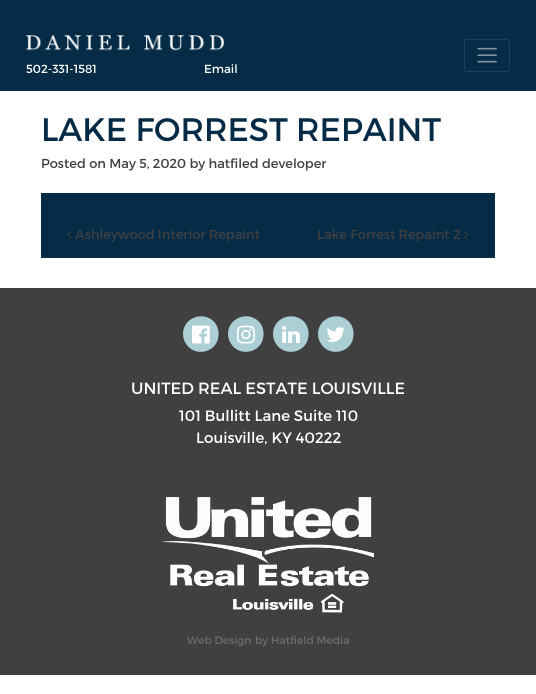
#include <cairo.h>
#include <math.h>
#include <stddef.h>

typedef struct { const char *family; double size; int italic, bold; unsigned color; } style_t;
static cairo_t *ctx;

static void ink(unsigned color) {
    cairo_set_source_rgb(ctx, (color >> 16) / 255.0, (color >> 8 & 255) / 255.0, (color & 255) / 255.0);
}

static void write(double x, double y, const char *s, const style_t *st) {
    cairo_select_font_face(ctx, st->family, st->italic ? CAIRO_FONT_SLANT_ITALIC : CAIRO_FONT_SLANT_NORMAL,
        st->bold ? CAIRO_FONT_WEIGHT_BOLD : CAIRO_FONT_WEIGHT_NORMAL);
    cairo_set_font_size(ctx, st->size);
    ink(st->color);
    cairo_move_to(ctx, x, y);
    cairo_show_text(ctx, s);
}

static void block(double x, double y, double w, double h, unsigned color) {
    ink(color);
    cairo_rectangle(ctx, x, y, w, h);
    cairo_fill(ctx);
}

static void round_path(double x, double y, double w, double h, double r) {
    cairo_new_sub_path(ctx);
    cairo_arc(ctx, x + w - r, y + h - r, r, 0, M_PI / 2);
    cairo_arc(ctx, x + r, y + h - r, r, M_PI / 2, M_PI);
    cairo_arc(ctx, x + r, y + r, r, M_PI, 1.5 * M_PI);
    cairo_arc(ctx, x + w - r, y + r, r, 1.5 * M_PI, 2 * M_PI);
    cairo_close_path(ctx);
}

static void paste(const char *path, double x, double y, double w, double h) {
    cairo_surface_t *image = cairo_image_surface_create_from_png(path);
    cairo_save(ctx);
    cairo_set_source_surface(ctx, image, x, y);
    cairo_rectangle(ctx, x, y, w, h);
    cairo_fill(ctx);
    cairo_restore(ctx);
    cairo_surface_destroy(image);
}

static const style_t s1 = {"Montserrat", 11.75, 0, 0, 0xffffff};
static const style_t s2 = {"Montserrat", 32.5, 0, 0, 0x052b46};
static const style_t s3 = {"Montserrat", 13, 0, 0, 0x404041};
static const style_t s4 = {"Montserrat", 16.25, 0, 0, 0xffffff};
static const style_t s5 = {"Montserrat", 15, 0, 0, 0xffffff};
static const style_t s6 = {"Montserrat", 10.75, 0, 0, 0x6c6c6b};

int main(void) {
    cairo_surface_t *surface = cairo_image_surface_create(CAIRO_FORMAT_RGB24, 536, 694);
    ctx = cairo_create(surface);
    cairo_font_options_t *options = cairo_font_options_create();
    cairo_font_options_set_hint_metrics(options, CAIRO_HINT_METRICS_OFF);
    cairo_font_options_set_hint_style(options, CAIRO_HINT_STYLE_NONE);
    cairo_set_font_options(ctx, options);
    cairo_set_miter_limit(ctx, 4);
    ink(0xffffff);
    cairo_paint(ctx);
    block(0, 0, 536, 91, 0x052b46);
    paste("pic1.png", 26, 35, 198, 16);
    write(26, 73, "502-331-1581", &s1);
    write(204, 73, "Email", &s1);
    round_path(464.5, 39.5, 45, 32, 2.5);
    ink(0x1e4059);
    cairo_set_line_width(ctx, 1);
    cairo_stroke(ctx);
    paste("pic2.png", 477, 47, 20, 16);
    write(41, 141, "LAKE FORREST REPAINT", &s2);
    write(41, 168, "Posted on May 5, 2020 by hatfiled developer", &s3);
    block(41, 193, 454, 65, 0x052b46);
    paste("pic3.png", 67, 231, 5, 8);
    write(75, 239, "Ashleywood Interior Repaint", &s3);
    write(317, 239, "Lake Forrest Repaint 2", &s3);
    paste("pic4.png", 464, 231, 5, 8);
    block(0, 288, 536, 387, 0x404041);
    ink(0xacced5);
    cairo_new_path(ctx);
    cairo_move_to(ctx, 216.5, 325);
    cairo_curve_to(ctx, 218, 328.5, 219, 332, 218.5, 335.5);
    cairo_curve_to(ctx, 217.5, 353, 194, 358, 185.5, 343);
    cairo_curve_to(ctx, 183.5, 340, 183, 336.5, 183, 333);
    cairo_curve_to(ctx, 184, 315.5, 207.5, 310, 216.5, 325);
    cairo_close_path(ctx);
    cairo_fill(ctx);
    paste("pic5.png", 192, 325, 18, 19);
    cairo_new_path(ctx);
    cairo_move_to(ctx, 261.5, 325);
    cairo_curve_to(ctx, 263, 328.5, 264, 332, 263.5, 335.5);
    cairo_curve_to(ctx, 262.5, 353, 239, 358, 230.5, 343);
    cairo_curve_to(ctx, 228.5, 340, 228, 336.5, 228, 333);
    cairo_curve_to(ctx, 229, 315.5, 252.5, 310, 261.5, 325);
    cairo_close_path(ctx);
    cairo_fill(ctx);
    paste("pic6.png", 237, 325, 18, 19);
    cairo_new_path(ctx);
    cairo_move_to(ctx, 306.5, 325);
    cairo_curve_to(ctx, 308, 328.5, 309, 332, 308.5, 335.5);
    cairo_curve_to(ctx, 307.5, 353, 284, 358, 275.5, 343);
    cairo_curve_to(ctx, 273.5, 340, 273, 336.5, 273, 333);
    cairo_curve_to(ctx, 274, 315.5, 297.5, 310, 306.5, 325);
    cairo_close_path(ctx);
    cairo_fill(ctx);
    paste("pic7.png", 282, 325, 18, 18);
    cairo_new_path(ctx);
    cairo_move_to(ctx, 351.5, 325);
    cairo_curve_to(ctx, 353, 328.5, 354, 332, 353.5, 335.5);
    cairo_curve_to(ctx, 352.5, 353, 329, 358, 320.5, 343);
    cairo_curve_to(ctx, 318.5, 340, 318, 336.5, 318, 333);
    cairo_curve_to(ctx, 319, 315.5, 342.5, 310, 351.5, 325);
    cairo_close_path(ctx);
    cairo_fill(ctx);
    paste("pic8.png", 326, 327, 19, 15);
    write(131, 394, "UNITED REAL ESTATE LOUISVILLE", &s4);
    write(179, 421, "101 Bullitt Lane Suite 110", &s5);
    write(196, 443, "Louisville, KY 40222", &s5);
    paste("pic9.png", 162, 497, 212, 116);
    write(187, 644, "Web Design", &s6);
    write(255, 644, "by", &s6);
    write(271, 644, "Hatfield Media", &s6);
    cairo_surface_write_to_png(surface, "screenshot.png");
    cairo_font_options_destroy(options);
    cairo_destroy(ctx);
    cairo_surface_destroy(surface);
    return 0;
}
